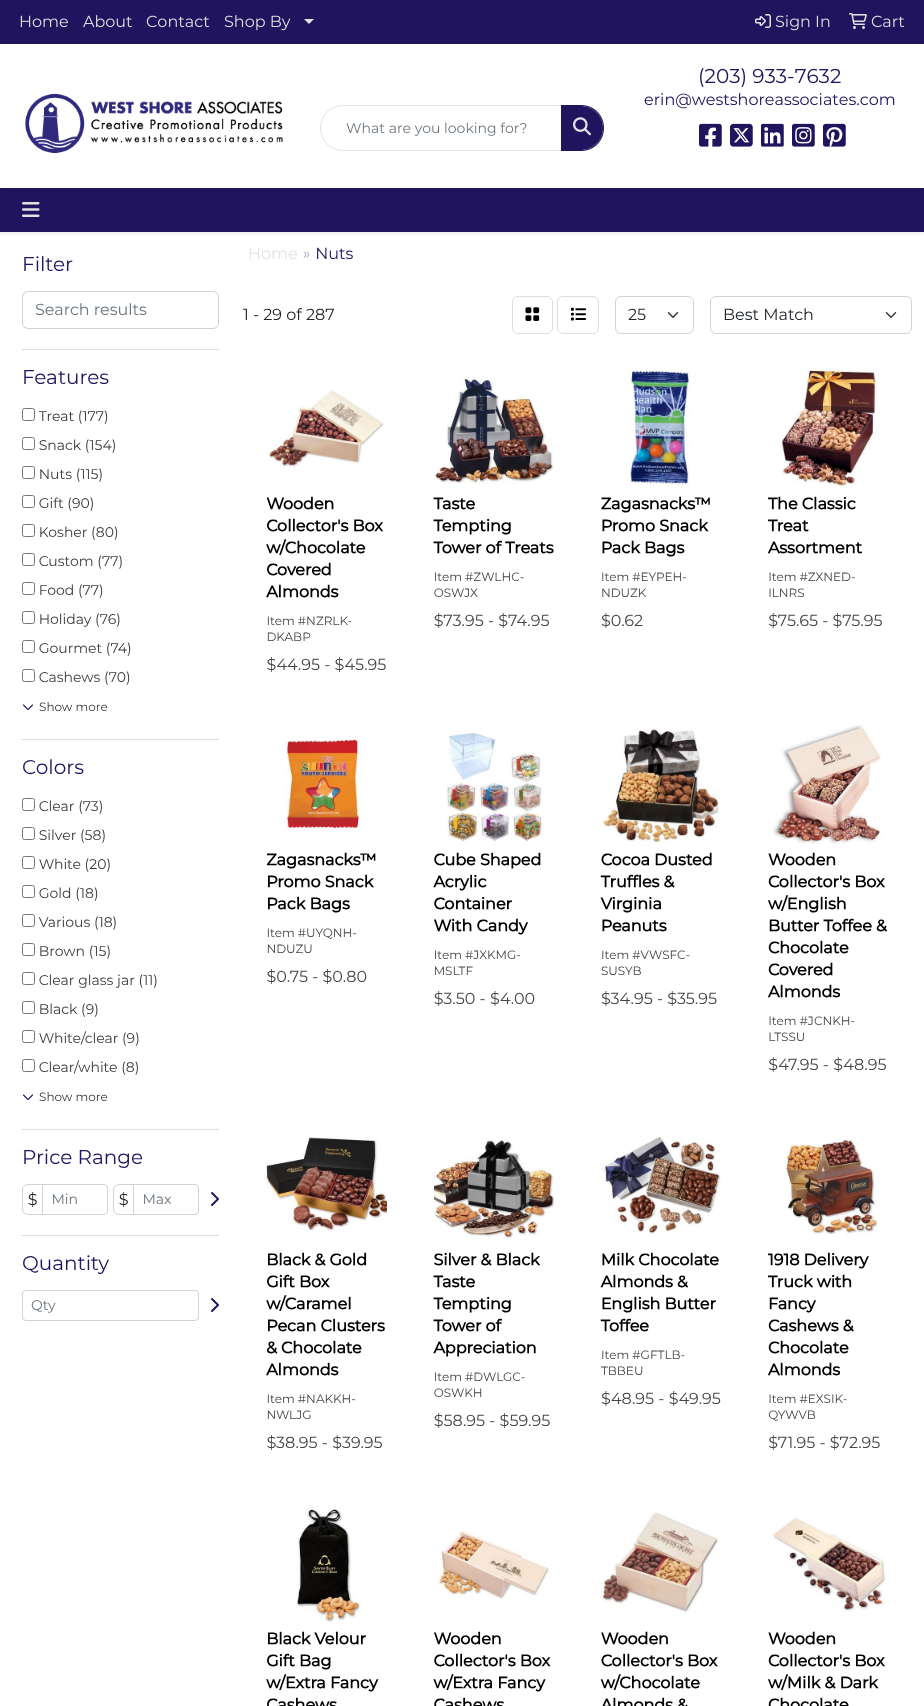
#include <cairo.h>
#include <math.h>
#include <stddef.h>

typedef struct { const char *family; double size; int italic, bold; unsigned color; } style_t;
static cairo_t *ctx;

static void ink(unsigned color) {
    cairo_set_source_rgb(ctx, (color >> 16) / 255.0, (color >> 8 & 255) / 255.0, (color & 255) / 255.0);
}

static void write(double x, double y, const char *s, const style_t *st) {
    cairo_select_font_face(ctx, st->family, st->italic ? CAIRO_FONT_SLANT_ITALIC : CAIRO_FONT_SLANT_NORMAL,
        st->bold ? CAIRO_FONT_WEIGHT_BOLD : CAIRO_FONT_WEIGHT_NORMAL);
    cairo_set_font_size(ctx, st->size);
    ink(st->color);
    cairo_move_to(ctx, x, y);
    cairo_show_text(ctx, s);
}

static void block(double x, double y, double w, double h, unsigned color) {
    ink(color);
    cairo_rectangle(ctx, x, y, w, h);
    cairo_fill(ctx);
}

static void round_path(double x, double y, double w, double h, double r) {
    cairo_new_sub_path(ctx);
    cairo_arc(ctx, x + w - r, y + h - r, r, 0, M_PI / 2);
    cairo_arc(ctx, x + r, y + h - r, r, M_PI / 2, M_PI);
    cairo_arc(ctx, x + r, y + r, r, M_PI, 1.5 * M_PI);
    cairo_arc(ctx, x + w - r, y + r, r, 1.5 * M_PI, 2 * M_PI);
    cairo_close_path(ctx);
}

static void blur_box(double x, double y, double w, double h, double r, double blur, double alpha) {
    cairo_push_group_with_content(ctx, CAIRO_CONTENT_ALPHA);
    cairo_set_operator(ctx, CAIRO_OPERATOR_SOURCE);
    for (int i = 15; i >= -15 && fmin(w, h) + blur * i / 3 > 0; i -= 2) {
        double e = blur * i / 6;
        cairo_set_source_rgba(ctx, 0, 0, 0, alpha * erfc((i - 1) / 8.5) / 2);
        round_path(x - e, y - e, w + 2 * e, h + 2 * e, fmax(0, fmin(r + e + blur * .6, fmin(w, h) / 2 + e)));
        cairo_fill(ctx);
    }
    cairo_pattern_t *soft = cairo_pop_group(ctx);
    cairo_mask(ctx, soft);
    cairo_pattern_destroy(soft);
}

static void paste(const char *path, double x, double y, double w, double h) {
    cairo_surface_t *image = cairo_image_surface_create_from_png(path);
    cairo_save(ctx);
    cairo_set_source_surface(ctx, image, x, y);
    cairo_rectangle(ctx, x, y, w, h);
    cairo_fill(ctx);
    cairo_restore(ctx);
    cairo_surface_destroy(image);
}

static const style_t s1 = {"Montserrat Thin", 16, 0, 0, 0xe3e3e3};
static const style_t s2 = {"Montserrat Thin", 20, 0, 0, 0x21145f};
static const style_t s3 = {"Montserrat Thin", 16, 0, 0, 0x21145f};
static const style_t s4 = {"Montserrat Thin", 14, 0, 0, 0x6c757d};

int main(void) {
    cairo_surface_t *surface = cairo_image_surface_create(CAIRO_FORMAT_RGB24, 924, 1706);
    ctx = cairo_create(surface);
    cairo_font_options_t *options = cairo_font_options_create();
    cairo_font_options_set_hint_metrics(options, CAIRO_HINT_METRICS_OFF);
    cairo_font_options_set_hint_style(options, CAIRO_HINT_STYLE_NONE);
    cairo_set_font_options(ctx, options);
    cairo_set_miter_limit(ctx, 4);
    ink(0xffffff);
    cairo_paint(ctx);
    block(0, 0, 924, 44, 0x21145f);
    write(19, 27, "Home", &s1);
    write(83, 27, "About", &s1);
    write(146, 27, "Contact", &s1);
    write(224, 27, "Shop By", &s1);
    cairo_new_path(ctx);
    cairo_move_to(ctx, 304, 19);
    cairo_line_to(ctx, 314, 19);
    cairo_line_to(ctx, 309, 24);
    cairo_close_path(ctx);
    cairo_fill(ctx);
    paste("pic1.png", 755, 14, 16, 14);
    write(775, 27, "Sign In", &s1);
    paste("pic2.png", 849, 13, 18, 16);
    write(871, 27, "Cart", &s1);
    write(698, 83, "(203) 933-7632", &s2);
    write(644, 105, "erin@westshoreassociates.com", &s3);
    paste("pic3.png", 699, 123, 23, 24);
    paste("pic4.png", 730, 123, 23, 24);
    paste("pic5.png", 761, 123, 23, 24);
    paste("pic6.png", 792, 123, 23, 24);
    paste("pic7.png", 823, 123, 23, 24);
    paste("pic8.png", 25, 93, 258, 60);
    cairo_new_path(ctx);
    cairo_move_to(ctx, 343, 105.5);
    cairo_line_to(ctx, 561.5, 105.5);
    cairo_line_to(ctx, 561.5, 150.5);
    cairo_line_to(ctx, 343, 150.5);
    cairo_curve_to(ctx, 330.5, 150.5, 320.5, 140.5, 320.5, 128);
    cairo_curve_to(ctx, 320.5, 115.5, 330.5, 105.5, 343, 105.5);
    cairo_close_path(ctx);
    ink(0xe4e4e4);
    cairo_set_line_width(ctx, 1);
    cairo_stroke(ctx);
    write(346, 133, "What are you looking for?", &s4);
    ink(0x21145f);
    cairo_new_path(ctx);
    cairo_move_to(ctx, 561, 106);
    cairo_line_to(ctx, 581, 106);
    cairo_curve_to(ctx, 593, 106, 603, 116, 603, 128);
    cairo_curve_to(ctx, 603, 140, 593, 150, 581, 150);
    cairo_line_to(ctx, 561, 150);
    cairo_close_path(ctx);
    cairo_fill(ctx);
    cairo_set_fill_rule(ctx, CAIRO_FILL_RULE_EVEN_ODD);
    cairo_new_path(ctx);
    cairo_move_to(ctx, 561, 105);
    cairo_line_to(ctx, 581, 105);
    cairo_curve_to(ctx, 594, 105, 604, 115, 604, 128);
    cairo_curve_to(ctx, 604, 141, 594, 151, 581, 151);
    cairo_line_to(ctx, 561, 151);
    cairo_close_path(ctx);
    cairo_move_to(ctx, 561, 106);
    cairo_line_to(ctx, 581, 106);
    cairo_curve_to(ctx, 593, 106, 603, 116, 603, 128);
    cairo_curve_to(ctx, 603, 140, 593, 150, 581, 150);
    cairo_line_to(ctx, 561, 150);
    cairo_close_path(ctx);
    cairo_fill(ctx);
    paste("pic9.png", 573, 117, 18, 19);
    ink(0x000000);
    blur_box(0, 190, 924, 44, 0, 2, 0.07);
    block(0, 188, 924, 44, 0x21145f);
    paste("pic10.png", 22, 202, 18, 15);
    paste("pic11.png", 22, 247, 890, 1459);
    cairo_surface_write_to_png(surface, "screenshot.png");
    cairo_font_options_destroy(options);
    cairo_destroy(ctx);
    cairo_surface_destroy(surface);
    return 0;
}
